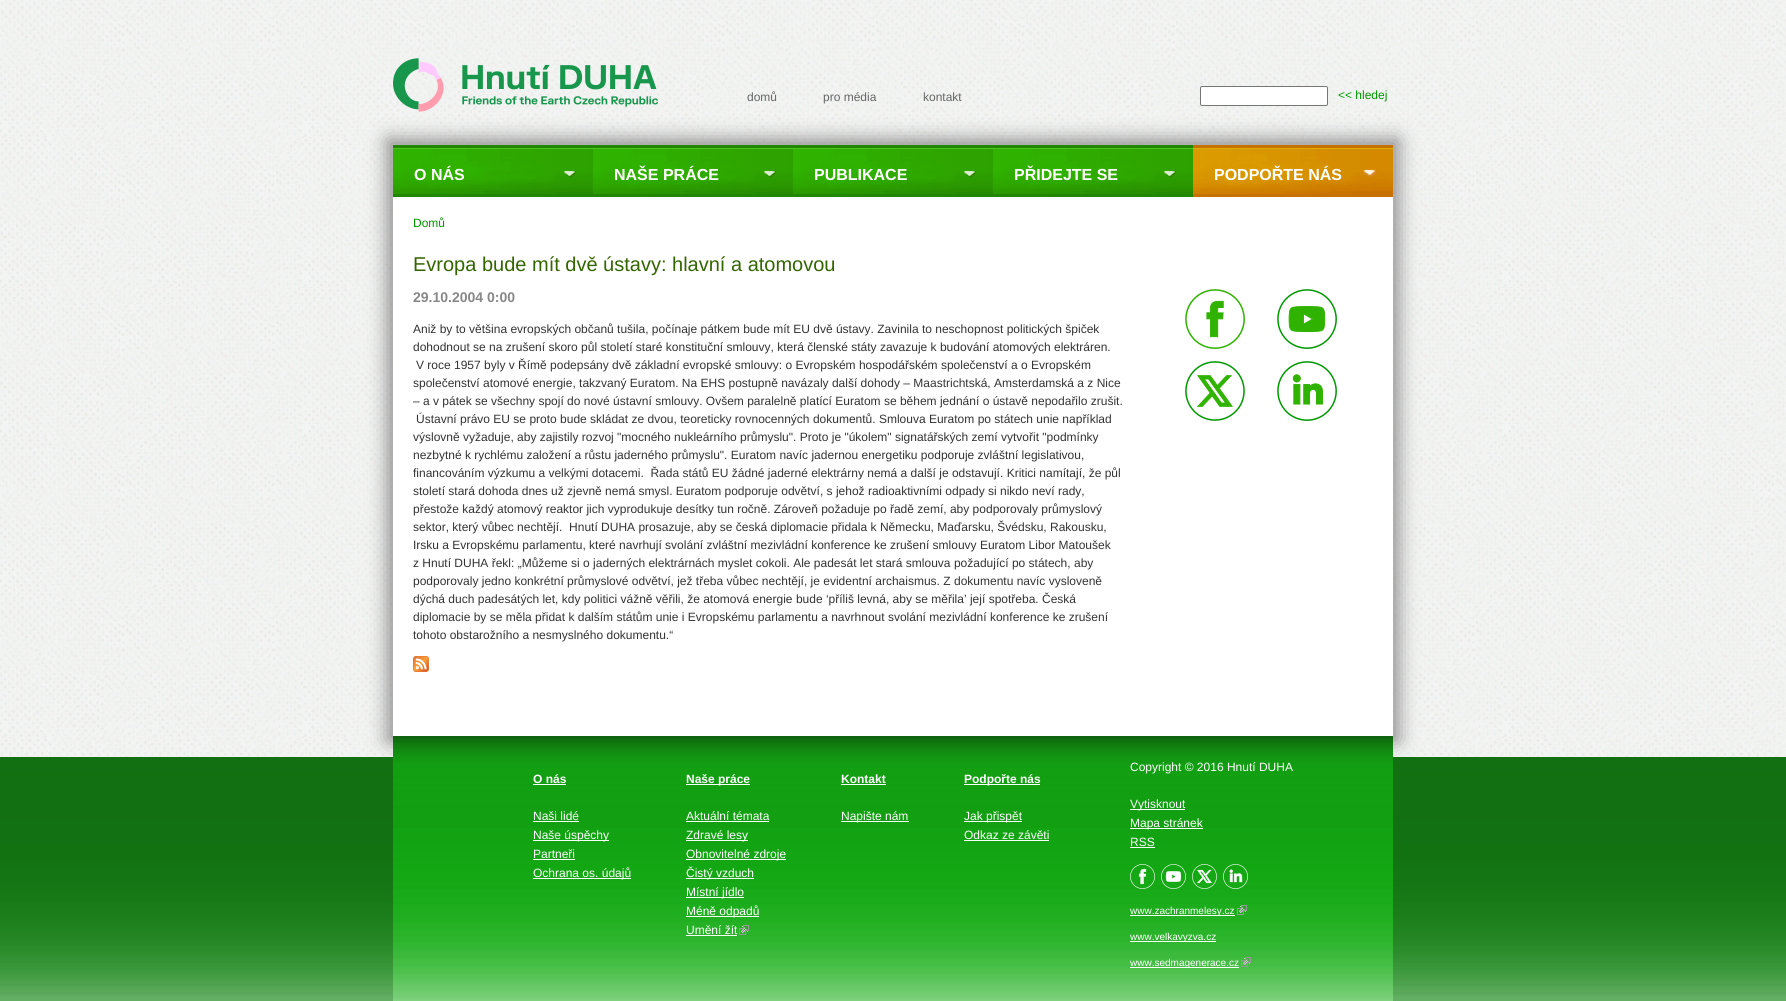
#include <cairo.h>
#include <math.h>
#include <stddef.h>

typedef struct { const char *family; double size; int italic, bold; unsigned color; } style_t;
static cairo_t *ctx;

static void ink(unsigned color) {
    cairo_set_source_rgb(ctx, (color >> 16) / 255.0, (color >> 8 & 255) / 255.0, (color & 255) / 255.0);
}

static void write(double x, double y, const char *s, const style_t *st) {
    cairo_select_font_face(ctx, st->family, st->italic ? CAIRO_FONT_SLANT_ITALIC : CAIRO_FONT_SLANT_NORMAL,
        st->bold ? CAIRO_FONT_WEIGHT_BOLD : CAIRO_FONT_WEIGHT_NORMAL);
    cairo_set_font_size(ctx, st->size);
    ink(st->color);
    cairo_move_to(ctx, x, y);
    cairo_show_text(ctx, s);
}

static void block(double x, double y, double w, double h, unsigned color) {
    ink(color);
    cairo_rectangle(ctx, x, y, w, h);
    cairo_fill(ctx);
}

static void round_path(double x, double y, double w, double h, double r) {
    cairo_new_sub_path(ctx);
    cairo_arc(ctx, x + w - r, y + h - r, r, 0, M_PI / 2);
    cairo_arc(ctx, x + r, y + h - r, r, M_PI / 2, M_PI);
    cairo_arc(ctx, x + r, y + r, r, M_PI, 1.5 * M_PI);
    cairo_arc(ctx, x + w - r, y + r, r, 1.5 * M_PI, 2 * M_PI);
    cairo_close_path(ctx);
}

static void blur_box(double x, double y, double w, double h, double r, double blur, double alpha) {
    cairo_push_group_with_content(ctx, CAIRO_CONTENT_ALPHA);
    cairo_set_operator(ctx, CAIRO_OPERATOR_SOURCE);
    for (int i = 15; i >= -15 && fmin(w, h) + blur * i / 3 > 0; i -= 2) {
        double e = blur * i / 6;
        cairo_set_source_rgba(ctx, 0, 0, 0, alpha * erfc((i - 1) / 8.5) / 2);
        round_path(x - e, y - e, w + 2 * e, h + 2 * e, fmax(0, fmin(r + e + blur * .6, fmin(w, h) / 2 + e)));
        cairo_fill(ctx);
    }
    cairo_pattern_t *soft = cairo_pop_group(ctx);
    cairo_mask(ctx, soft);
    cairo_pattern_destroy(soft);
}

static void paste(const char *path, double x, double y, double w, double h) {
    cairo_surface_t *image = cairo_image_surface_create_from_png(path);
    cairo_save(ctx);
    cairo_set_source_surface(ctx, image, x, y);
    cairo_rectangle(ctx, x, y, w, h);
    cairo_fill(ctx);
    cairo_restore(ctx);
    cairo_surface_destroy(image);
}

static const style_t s1 = {"Liberation Sans", 12, 0, 0, 0x666666};
static const style_t s2 = {"Liberation Sans", 12, 0, 0, 0x009900};
static const style_t s3 = {"Liberation Sans", 16, 0, 1, 0xffffff};
static const style_t s4 = {"Liberation Sans", 20, 0, 0, 0x336600};
static const style_t s5 = {"Liberation Sans", 14, 0, 1, 0x888888};
static const style_t s6 = {"Liberation Sans", 12, 0, 0, 0x333333};
static const style_t s7 = {"Liberation Sans", 12, 0, 1, 0xffffff};
static const style_t s8 = {"Liberation Sans", 12, 0, 0, 0xffffff};
static const style_t s9 = {"Liberation Sans", 10, 0, 0, 0xffffff};

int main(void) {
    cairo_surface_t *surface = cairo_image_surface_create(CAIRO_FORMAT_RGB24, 1786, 1001);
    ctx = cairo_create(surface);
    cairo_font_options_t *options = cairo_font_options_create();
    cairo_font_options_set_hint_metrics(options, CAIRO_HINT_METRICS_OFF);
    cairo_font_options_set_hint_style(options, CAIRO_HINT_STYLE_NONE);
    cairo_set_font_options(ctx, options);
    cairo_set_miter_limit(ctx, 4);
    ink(0xffffff);
    cairo_paint(ctx);
    paste("pic1.png", 0, 0, 1786, 757);
    ink(0x888888);
    blur_box(388, 140, 1010, 601, 0, 10, 1);
    paste("pic2.png", 393, 58, 265, 54);
    write(747, 101, "domů", &s1);
    write(823, 101, "pro média", &s1);
    write(923, 101, "kontakt", &s1);
    ink(0xffffff);
    round_path(1200.5, 86.5, 127, 19, 1.5);
    cairo_fill_preserve(ctx);
    ink(0x767676);
    cairo_set_line_width(ctx, 1);
    cairo_stroke(ctx);
    write(1338, 99, "<< hledej", &s2);
    block(393, 197, 1000, 539, 0xffffff);
    paste("pic3.png", 393, 145, 200, 52);
    write(414, 180, "O NÁS", &s3);
    paste("pic3.png", 593, 145, 200, 52);
    write(614, 180, "NAŠE PRÁCE", &s3);
    paste("pic3.png", 793, 145, 200, 52);
    write(814, 180, "PUBLIKACE", &s3);
    paste("pic3.png", 993, 145, 200, 52);
    write(1014, 180, "PŘIDEJTE SE", &s3);
    paste("pic4.png", 1193, 145, 200, 52);
    write(1214, 180, "PODPOŘTE NÁS", &s3);
    write(413, 227, "Domů", &s2);
    write(413, 271, "Evropa bude mít dvě ústavy: hlavní a atomovou", &s4);
    write(413, 302, "29.10.2004 0:00", &s5);
    write(413, 333, "Aniž by to většina evropských občanů tušila, počínaje pátkem bude mít EU dvě ústavy. Zavinila to neschopnost politických špiček", &s6);
    write(413, 351, "dohodnout se na zrušení skoro půl století staré konstituční smlouvy, která členské státy zavazuje k budování atomových elektráren.", &s6);
    write(416, 369, "V roce 1957 byly v Římě podepsány dvě základní evropské smlouvy: o Evropském hospodářském společenství a o Evropském", &s6);
    write(413, 387, "společenství atomové energie, takzvaný Euratom. Na EHS postupně navázaly další dohody – Maastrichtská, Amsterdamská a z Nice", &s6);
    write(413, 405, "– a v pátek se všechny spojí do nové ústavní smlouvy. Ovšem paralelně platící Euratom se během jednání o ústavě nepodařilo zrušit.", &s6);
    write(416, 423, "Ústavní právo EU se proto bude skládat ze dvou, teoreticky rovnocenných dokumentů. Smlouva Euratom po státech unie například", &s6);
    write(413, 441, "výslovně vyžaduje, aby zajistily rozvoj \"mocného nukleárního průmyslu\". Proto je \"úkolem\" signatářských zemí vytvořit \"podmínky", &s6);
    write(413, 459, "nezbytné k rychlému založení a růstu jaderného průmyslu\". Euratom navíc jadernou energetiku podporuje zvláštní legislativou,", &s6);
    write(413, 477, "financováním výzkumu a velkými dotacemi.  Řada států EU žádné jaderné elektrárny nemá a další je odstavují. Kritici namítají, že půl", &s6);
    write(413, 495, "století stará dohoda dnes už zjevně nemá smysl. Euratom podporuje odvětví, s jehož radioaktivními odpady si nikdo neví rady,", &s6);
    write(413, 513, "přestože každý atomový reaktor jich vyprodukuje desítky tun ročně. Zároveň požaduje po řadě zemí, aby podporovaly průmyslový", &s6);
    write(413, 531, "sektor, který vůbec nechtějí.  Hnutí DUHA prosazuje, aby se česká diplomacie přidala k Německu, Maďarsku, Švédsku, Rakousku,", &s6);
    write(413, 549, "Irsku a Evropskému parlamentu, které navrhují svolání zvláštní mezivládní konference ke zrušení smlouvy Euratom Libor Matoušek", &s6);
    write(413, 567, "z Hnutí DUHA řekl: „Můžeme si o jaderných elektrárnách myslet cokoli. Ale padesát let stará smlouva požadující po státech, aby", &s6);
    write(413, 585, "podporovaly jedno konkrétní průmyslové odvětví, jež třeba vůbec nechtějí, je evidentní archaismus. Z dokumentu navíc vysloveně", &s6);
    write(413, 603, "dýchá duch padesátých let, kdy politici vážně věřili, že atomová energie bude ‘příliš levná, aby se měřila’ její spotřeba. Česká", &s6);
    write(413, 621, "diplomacie by se měla přidat k dalším státům unie i Evropskému parlamentu a navrhnout svolání mezivládní konference ke zrušení", &s6);
    write(413, 639, "tohoto obstarožního a nesmyslného dokumentu.“", &s6);
    paste("pic5.png", 413, 656, 16, 16);
    paste("pic6.png", 1185, 289, 60, 60);
    paste("pic7.png", 1277, 289, 60, 60);
    paste("pic8.png", 1185, 361, 60, 60);
    paste("pic9.png", 1277, 361, 60, 60);
    paste("pic10.png", 0, 757, 1786, 244);
    paste("pic11.png", 393, 736, 1000, 265);
    write(533, 783, "O nás", &s7);
    block(533, 784, 33, 1, 0xffffff);
    write(533, 820, "Naši lidé", &s8);
    block(533, 821, 46, 1, 0xffffff);
    block(533, 840, 76, 1, 0xffffff);
    write(533, 839, "Naše úspěchy", &s8);
    write(533, 858, "Partneři", &s8);
    block(533, 859, 42, 1, 0xffffff);
    block(533, 878, 98, 1, 0xffffff);
    write(533, 877, "Ochrana os. údajů", &s8);
    block(686, 784, 64, 1, 0xffffff);
    write(686, 783, "Naše práce", &s7);
    write(686, 820, "Aktuální témata", &s8);
    block(686, 821, 83, 1, 0xffffff);
    block(686, 840, 62, 1, 0xffffff);
    write(686, 839, "Zdravé lesy", &s8);
    block(686, 859, 100, 1, 0xffffff);
    write(686, 858, "Obnovitelné zdroje", &s8);
    block(686, 878, 68, 1, 0xffffff);
    write(686, 877, "Čistý vzduch", &s8);
    block(686, 897, 58, 1, 0xffffff);
    write(686, 896, "Místní jídlo", &s8);
    block(686, 916, 73, 1, 0xffffff);
    write(686, 915, "Méně odpadů", &s8);
    write(686, 934, "Umění žít", &s8);
    block(686, 935, 51, 1, 0xffffff);
    paste("pic12.png", 739, 925, 10, 10);
    write(841, 783, "Kontakt", &s7);
    block(841, 784, 45, 1, 0xffffff);
    block(841, 821, 68, 1, 0xffffff);
    write(841, 820, "Napište nám", &s8);
    block(964, 784, 76, 1, 0xffffff);
    write(964, 783, "Podpořte nás", &s7);
    block(964, 821, 58, 1, 0xffffff);
    write(964, 820, "Jak přispět", &s8);
    write(964, 839, "Odkaz ze závěti", &s8);
    block(964, 840, 85, 1, 0xffffff);
    write(1130, 771, "Copyright © 2016 Hnutí DUHA", &s8);
    block(1130, 809, 55, 1, 0xffffff);
    write(1130, 808, "Vytisknout", &s8);
    block(1130, 828, 73, 1, 0xffffff);
    write(1130, 827, "Mapa stránek", &s8);
    write(1130, 846, "RSS", &s8);
    block(1130, 847, 25, 1, 0xffffff);
    paste("pic13.png", 1130, 864, 25, 25);
    paste("pic14.png", 1161, 864, 25, 25);
    paste("pic15.png", 1192, 864, 25, 25);
    paste("pic16.png", 1223, 864, 25, 25);
    block(1130, 915, 105, 1, 0xffffff);
    write(1130, 914, "www.zachranmelesy.cz", &s9);
    paste("pic17.png", 1237, 905, 10, 10);
    block(1130, 941, 86, 1, 0xffffff);
    write(1130, 940, "www.velkavyzva.cz", &s9);
    block(1130, 967, 109, 1, 0xffffff);
    write(1130, 966, "www.sedmagenerace.cz", &s9);
    paste("pic18.png", 1241, 957, 10, 10);
    cairo_surface_write_to_png(surface, "screenshot.png");
    cairo_font_options_destroy(options);
    cairo_destroy(ctx);
    cairo_surface_destroy(surface);
    return 0;
}
